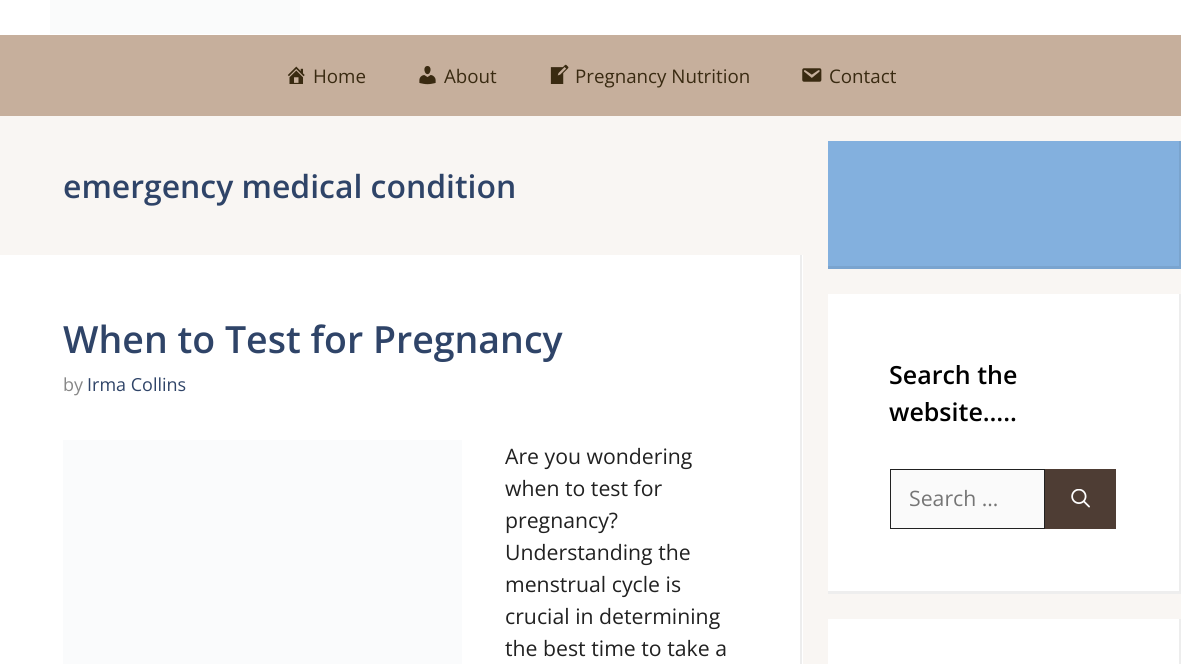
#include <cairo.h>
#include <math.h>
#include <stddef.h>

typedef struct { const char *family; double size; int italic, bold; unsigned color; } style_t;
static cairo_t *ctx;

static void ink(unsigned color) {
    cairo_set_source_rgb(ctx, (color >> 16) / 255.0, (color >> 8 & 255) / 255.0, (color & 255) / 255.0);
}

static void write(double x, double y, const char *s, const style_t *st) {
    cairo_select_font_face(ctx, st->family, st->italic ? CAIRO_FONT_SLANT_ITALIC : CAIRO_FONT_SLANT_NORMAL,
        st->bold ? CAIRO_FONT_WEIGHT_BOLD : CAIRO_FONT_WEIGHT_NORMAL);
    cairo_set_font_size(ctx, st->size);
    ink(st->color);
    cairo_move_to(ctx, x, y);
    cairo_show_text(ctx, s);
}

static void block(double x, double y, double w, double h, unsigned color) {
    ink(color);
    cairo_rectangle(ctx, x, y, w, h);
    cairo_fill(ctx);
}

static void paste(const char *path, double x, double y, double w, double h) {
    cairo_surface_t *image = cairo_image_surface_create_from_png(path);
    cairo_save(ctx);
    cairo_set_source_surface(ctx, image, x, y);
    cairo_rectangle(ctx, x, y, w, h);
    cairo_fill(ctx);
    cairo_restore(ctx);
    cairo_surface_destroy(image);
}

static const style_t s1 = {"Open Sans", 18.75, 0, 0, 0x392a11};
static const style_t s2 = {"Open Sans SemiBold", 31.9, 0, 0, 0x2f4468};
static const style_t s3 = {"Open Sans SemiBold", 37.5, 0, 0, 0x2f4468};
static const style_t s4 = {"Open Sans", 18, 0, 0, 0x878787};
static const style_t s5 = {"Open Sans", 18, 0, 0, 0x2f4468};
static const style_t s6 = {"Open Sans", 21.25, 0, 0, 0x212121};
static const style_t s7 = {"Open Sans SemiBold", 25, 0, 0, 0x000000};
static const style_t s8 = {"Open Sans", 21.25, 0, 0, 0x757575};

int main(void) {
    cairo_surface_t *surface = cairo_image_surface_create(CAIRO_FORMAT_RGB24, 1181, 664);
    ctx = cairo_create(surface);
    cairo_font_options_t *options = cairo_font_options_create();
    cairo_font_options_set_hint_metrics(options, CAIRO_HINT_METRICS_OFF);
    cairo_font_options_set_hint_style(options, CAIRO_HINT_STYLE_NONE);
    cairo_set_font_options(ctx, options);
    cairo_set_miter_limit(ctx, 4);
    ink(0xf9f6f3);
    cairo_paint(ctx);
    block(0, 0, 1181, 35, 0xffffff);
    block(50, 0, 250, 34, 0xfafbfb);
    block(0, 35, 1181, 81, 0xc6af9c);
    paste("pic1.png", 287, 66, 18, 18);
    write(313, 83, "Home", &s1);
    paste("pic2.png", 419, 66, 17, 19);
    write(444, 83, "About", &s1);
    paste("pic3.png", 550, 64, 19, 20);
    write(575, 83, "Pregnancy Nutrition", &s1);
    paste("pic4.png", 802, 68, 20, 14);
    write(829, 83, "Contact", &s1);
    write(63, 198, "emergency medical condition", &s2);
    block(0, 255, 803, 409, 0xffffff);
    ink(0xededed);
    cairo_new_path(ctx);
    cairo_move_to(ctx, 802, 255);
    cairo_line_to(ctx, 802, 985);
    cairo_line_to(ctx, 800, 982);
    cairo_line_to(ctx, 800, 255);
    cairo_close_path(ctx);
    cairo_fill(ctx);
    write(63, 353, "When to Test for Pregnancy", &s3);
    write(63, 391, "by", &s4);
    write(87, 391, "Irma Collins", &s5);
    block(63, 440, 399, 224, 0xfafbfc);
    write(505, 464, "Are you wondering", &s6);
    write(505, 496, "when to test for", &s6);
    write(505, 528, "pregnancy?", &s6);
    write(505, 560, "Understanding the", &s6);
    write(505, 592, "menstrual cycle is", &s6);
    write(505, 624, "crucial in determining", &s6);
    write(505, 656, "the best time to take a", &s6);
    block(828, 141, 353, 128, 0x83b0de);
    ink(0x7aa4ce);
    cairo_new_path(ctx);
    cairo_move_to(ctx, 1181, 141);
    cairo_line_to(ctx, 1181, 269);
    cairo_line_to(ctx, 1179, 266);
    cairo_line_to(ctx, 1179, 141);
    cairo_close_path(ctx);
    cairo_fill(ctx);
    cairo_set_source_rgba(ctx, 0, 0, 0, 0.07);
    cairo_new_path(ctx);
    cairo_move_to(ctx, 1181, 269);
    cairo_line_to(ctx, 828, 269);
    cairo_line_to(ctx, 828, 266);
    cairo_line_to(ctx, 1179, 266);
    cairo_close_path(ctx);
    cairo_fill(ctx);
    block(828, 294, 353, 300, 0xffffff);
    ink(0xededed);
    cairo_new_path(ctx);
    cairo_move_to(ctx, 1181, 294);
    cairo_line_to(ctx, 1181, 594);
    cairo_line_to(ctx, 1179, 591);
    cairo_line_to(ctx, 1179, 294);
    cairo_close_path(ctx);
    cairo_fill(ctx);
    cairo_set_source_rgba(ctx, 0, 0, 0, 0.07);
    cairo_new_path(ctx);
    cairo_move_to(ctx, 1181, 594);
    cairo_line_to(ctx, 828, 594);
    cairo_line_to(ctx, 828, 591);
    cairo_line_to(ctx, 1179, 591);
    cairo_close_path(ctx);
    cairo_fill(ctx);
    write(889, 384, "Search the", &s7);
    write(889, 421, "website…..", &s7);
    ink(0xfafafa);
    cairo_rectangle(ctx, 890.5, 469.5, 154, 59);
    cairo_fill_preserve(ctx);
    ink(0x212121);
    cairo_set_line_width(ctx, 1);
    cairo_stroke(ctx);
    write(909, 506, "Search …", &s8);
    block(1045, 469, 71, 60, 0x4e3d34);
    paste("pic5.png", 1071, 489, 19, 19);
    block(828, 619, 351, 45, 0xffffff);
    ink(0xededed);
    cairo_new_path(ctx);
    cairo_move_to(ctx, 1181, 619);
    cairo_line_to(ctx, 1181, 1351);
    cairo_line_to(ctx, 1179, 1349);
    cairo_line_to(ctx, 1179, 619);
    cairo_close_path(ctx);
    cairo_fill(ctx);
    cairo_surface_write_to_png(surface, "screenshot.png");
    cairo_font_options_destroy(options);
    cairo_destroy(ctx);
    cairo_surface_destroy(surface);
    return 0;
}
